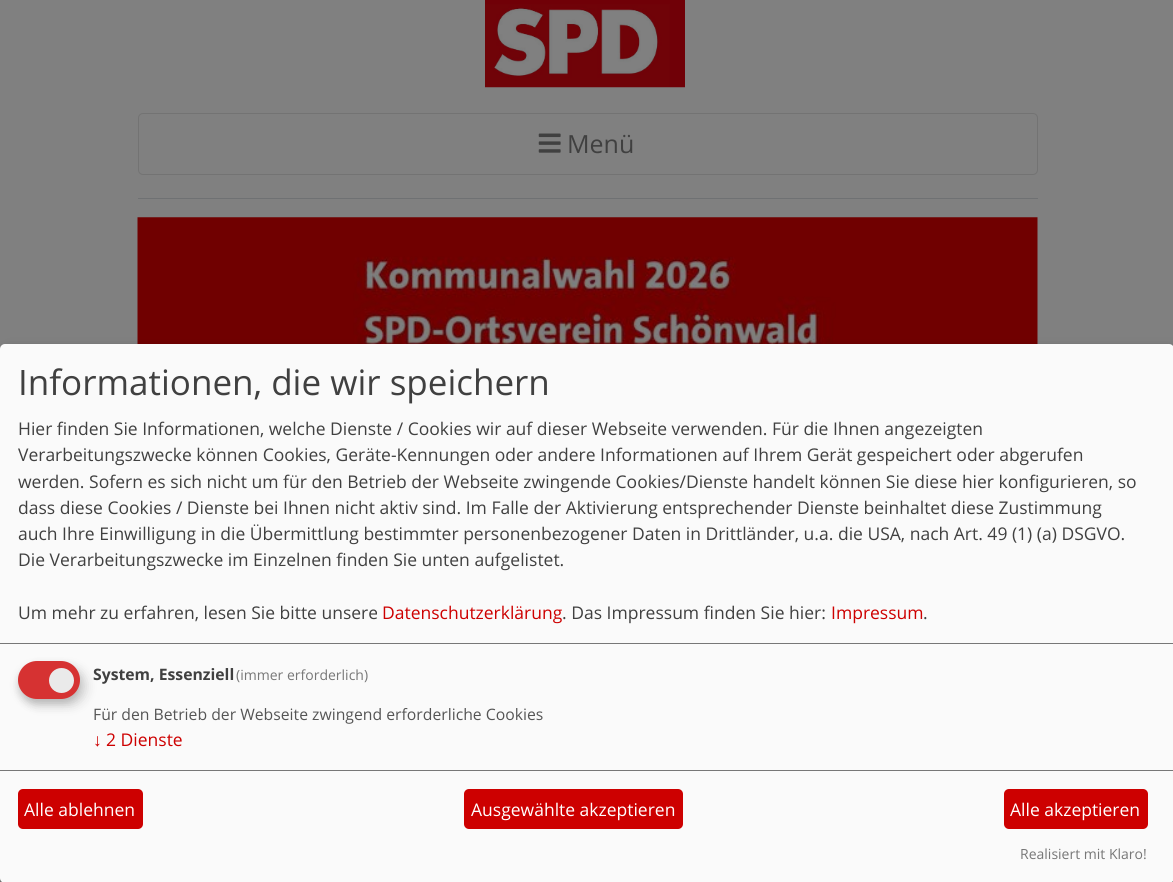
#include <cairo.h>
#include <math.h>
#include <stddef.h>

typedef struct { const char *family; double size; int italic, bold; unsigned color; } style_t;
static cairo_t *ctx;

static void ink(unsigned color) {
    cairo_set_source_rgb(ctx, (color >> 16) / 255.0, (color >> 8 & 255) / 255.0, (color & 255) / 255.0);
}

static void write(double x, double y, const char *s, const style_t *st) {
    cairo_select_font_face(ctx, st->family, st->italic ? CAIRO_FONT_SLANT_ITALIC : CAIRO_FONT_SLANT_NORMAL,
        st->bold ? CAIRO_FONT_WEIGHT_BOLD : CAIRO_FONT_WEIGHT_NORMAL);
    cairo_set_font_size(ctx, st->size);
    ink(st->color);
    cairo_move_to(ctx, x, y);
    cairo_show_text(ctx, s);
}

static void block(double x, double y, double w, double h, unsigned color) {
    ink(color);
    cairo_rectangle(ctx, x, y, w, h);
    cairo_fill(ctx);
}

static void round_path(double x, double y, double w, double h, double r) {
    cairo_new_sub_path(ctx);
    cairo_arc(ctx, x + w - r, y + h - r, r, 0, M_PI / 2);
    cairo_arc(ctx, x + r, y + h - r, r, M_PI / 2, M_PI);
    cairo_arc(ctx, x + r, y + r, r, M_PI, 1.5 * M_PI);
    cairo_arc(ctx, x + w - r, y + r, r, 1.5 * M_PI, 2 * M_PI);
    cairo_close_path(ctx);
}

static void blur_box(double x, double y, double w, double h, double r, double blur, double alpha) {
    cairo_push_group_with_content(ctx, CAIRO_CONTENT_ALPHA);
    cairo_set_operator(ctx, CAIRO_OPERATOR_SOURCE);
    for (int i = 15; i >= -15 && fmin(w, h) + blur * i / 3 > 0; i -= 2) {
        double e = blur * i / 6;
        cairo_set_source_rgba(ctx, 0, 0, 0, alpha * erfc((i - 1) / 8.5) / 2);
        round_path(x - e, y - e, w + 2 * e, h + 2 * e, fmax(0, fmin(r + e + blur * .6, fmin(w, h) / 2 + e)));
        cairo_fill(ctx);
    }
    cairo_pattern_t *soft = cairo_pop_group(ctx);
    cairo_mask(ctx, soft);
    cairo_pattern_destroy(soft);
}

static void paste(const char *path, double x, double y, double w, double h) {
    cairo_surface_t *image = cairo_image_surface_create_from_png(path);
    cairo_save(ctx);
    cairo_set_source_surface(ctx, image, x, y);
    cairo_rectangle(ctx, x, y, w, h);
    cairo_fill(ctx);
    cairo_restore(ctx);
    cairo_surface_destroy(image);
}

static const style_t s1 = {"Open Sans", 25, 0, 0, 0x404040};
static const style_t s2 = {"Open Sans", 35, 0, 0, 0x404040};
static const style_t s3 = {"Open Sans", 17.5, 0, 0, 0x404040};
static const style_t s4 = {"Open Sans", 17.5, 0, 0, 0xcd0000};
static const style_t s5 = {"Open Sans", 15.75, 0, 1, 0x404040};
static const style_t s6 = {"Open Sans", 14, 0, 0, 0x777777};
static const style_t s7 = {"Open Sans", 15.75, 0, 0, 0x555555};
static const style_t s8 = {"Liberation Sans", 17.5, 0, 0, 0xcd0000};
static const style_t s9 = {"Open Sans", 17.5, 0, 0, 0xffffff};

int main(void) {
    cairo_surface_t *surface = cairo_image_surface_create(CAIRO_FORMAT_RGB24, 1173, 882);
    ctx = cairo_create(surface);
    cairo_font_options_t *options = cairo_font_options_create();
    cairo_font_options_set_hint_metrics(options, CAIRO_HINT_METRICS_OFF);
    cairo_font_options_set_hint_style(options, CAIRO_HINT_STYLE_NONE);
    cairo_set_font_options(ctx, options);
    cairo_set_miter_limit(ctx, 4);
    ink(0x808080);
    cairo_paint(ctx);
    block(138, 198, 900, 1, 0x6f7173);
    paste("pic1.png", 485, 0, 200, 88);
    round_path(138.5, 113.5, 899, 61, 4.5);
    ink(0x737373);
    cairo_set_line_width(ctx, 1);
    cairo_stroke(ctx);
    paste("pic2.png", 538, 133, 23, 20);
    write(567, 153, "Menü", &s1);
    paste("pic3.png", 137, 217, 901, 127);
    ink(0x000000);
    blur_box(6, 350, 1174, 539, 5, 6, 0.19);
    blur_box(0, 349, 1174, 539, 5, 4, 0.2);
    ink(0xfafafa);
    round_path(0, 344, 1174, 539, 5);
    cairo_fill(ctx);
    block(0, 643, 1173, 1, 0x777777);
    write(18, 395, "Informationen, die wir speichern", &s2);
    write(18, 435, "Hier finden Sie Informationen, welche Dienste / Cookies wir auf dieser Webseite verwenden. Für die Ihnen angezeigten", &s3);
    write(18, 461, "Verarbeitungszwecke können Cookies, Geräte-Kennungen oder andere Informationen auf Ihrem Gerät gespeichert oder abgerufen", &s3);
    write(18, 488, "werden. Sofern es sich nicht um für den Betrieb der Webseite zwingende Cookies/Dienste handelt können Sie diese hier konfigurieren, so", &s3);
    write(18, 514, "dass diese Cookies / Dienste bei Ihnen nicht aktiv sind. Im Falle der Aktivierung entsprechender Dienste beinhaltet diese Zustimmung", &s3);
    write(18, 540, "auch Ihre Einwilligung in die Übermittlung bestimmter personenbezogener Daten in Drittländer, u.a. die USA, nach Art. 49 (1) (a) DSGVO.", &s3);
    write(18, 566, "Die Verarbeitungszwecke im Einzelnen finden Sie unten aufgelistet.", &s3);
    write(18, 619, "Um mehr zu erfahren, lesen Sie bitte unsere", &s3);
    write(382, 619, "Datenschutzerklärung", &s4);
    write(562, 619, ". Das Impressum finden Sie hier:", &s3);
    write(831, 619, "Impressum", &s4);
    write(923, 619, ".", &s3);
    ink(0x000000);
    blur_box(24, 668, 62, 37, 18.5, 6, 0.15);
    ink(0x323232);
    blur_box(18, 666, 62, 38, 19, 4, 0.2);
    ink(0xd63232);
    round_path(18, 661, 62, 38, 19);
    cairo_fill(ctx);
    ink(0xeaeaea);
    cairo_arc(ctx, 61.5, 680.5, 12.5, 0, 2 * M_PI);
    cairo_fill(ctx);
    write(93, 680, "System, Essenziell", &s5);
    write(236, 680, "(immer erforderlich)", &s6);
    write(93, 720, "Für den Betrieb der Webseite zwingend erforderliche Cookies", &s7);
    write(93, 746, "↓", &s8);
    write(106, 746, "2 Dienste", &s4);
    block(0, 770, 1173, 1, 0x777777);
    ink(0xcd0000);
    round_path(18, 789, 125, 40, 5);
    cairo_fill(ctx);
    write(24, 816, "Alle ablehnen", &s9);
    ink(0xcd0000);
    round_path(464, 789, 219, 40, 5);
    cairo_fill(ctx);
    write(471, 816, "Ausgewählte akzeptieren", &s9);
    ink(0xcd0000);
    round_path(1004, 789, 144, 40, 5);
    cairo_fill(ctx);
    write(1010, 816, "Alle akzeptieren", &s9);
    write(1020, 859, "Realisiert mit Klaro!", &s6);
    cairo_surface_write_to_png(surface, "screenshot.png");
    cairo_font_options_destroy(options);
    cairo_destroy(ctx);
    cairo_surface_destroy(surface);
    return 0;
}
